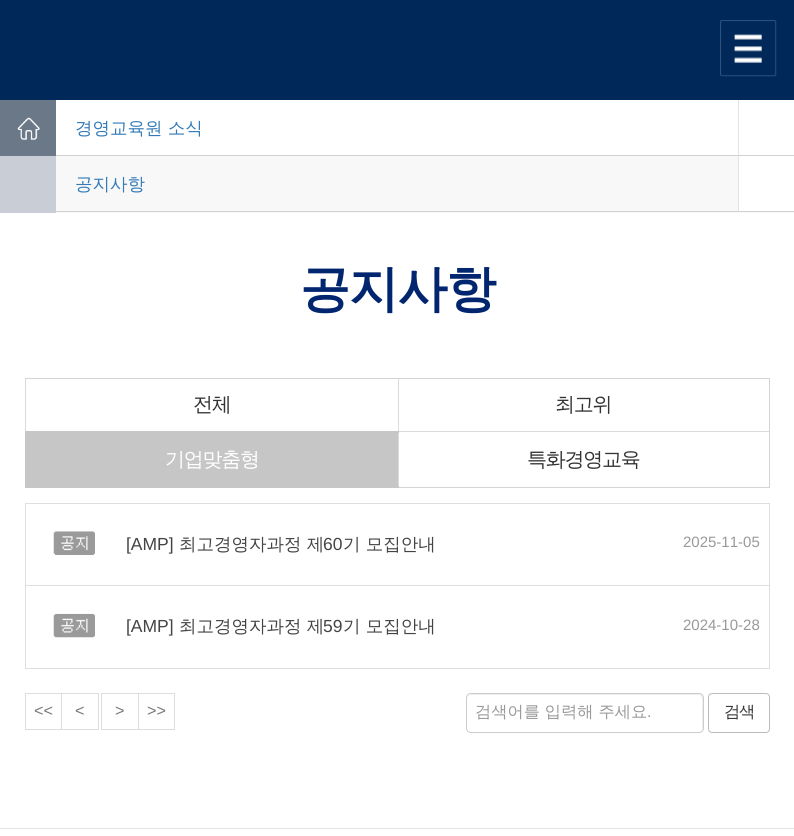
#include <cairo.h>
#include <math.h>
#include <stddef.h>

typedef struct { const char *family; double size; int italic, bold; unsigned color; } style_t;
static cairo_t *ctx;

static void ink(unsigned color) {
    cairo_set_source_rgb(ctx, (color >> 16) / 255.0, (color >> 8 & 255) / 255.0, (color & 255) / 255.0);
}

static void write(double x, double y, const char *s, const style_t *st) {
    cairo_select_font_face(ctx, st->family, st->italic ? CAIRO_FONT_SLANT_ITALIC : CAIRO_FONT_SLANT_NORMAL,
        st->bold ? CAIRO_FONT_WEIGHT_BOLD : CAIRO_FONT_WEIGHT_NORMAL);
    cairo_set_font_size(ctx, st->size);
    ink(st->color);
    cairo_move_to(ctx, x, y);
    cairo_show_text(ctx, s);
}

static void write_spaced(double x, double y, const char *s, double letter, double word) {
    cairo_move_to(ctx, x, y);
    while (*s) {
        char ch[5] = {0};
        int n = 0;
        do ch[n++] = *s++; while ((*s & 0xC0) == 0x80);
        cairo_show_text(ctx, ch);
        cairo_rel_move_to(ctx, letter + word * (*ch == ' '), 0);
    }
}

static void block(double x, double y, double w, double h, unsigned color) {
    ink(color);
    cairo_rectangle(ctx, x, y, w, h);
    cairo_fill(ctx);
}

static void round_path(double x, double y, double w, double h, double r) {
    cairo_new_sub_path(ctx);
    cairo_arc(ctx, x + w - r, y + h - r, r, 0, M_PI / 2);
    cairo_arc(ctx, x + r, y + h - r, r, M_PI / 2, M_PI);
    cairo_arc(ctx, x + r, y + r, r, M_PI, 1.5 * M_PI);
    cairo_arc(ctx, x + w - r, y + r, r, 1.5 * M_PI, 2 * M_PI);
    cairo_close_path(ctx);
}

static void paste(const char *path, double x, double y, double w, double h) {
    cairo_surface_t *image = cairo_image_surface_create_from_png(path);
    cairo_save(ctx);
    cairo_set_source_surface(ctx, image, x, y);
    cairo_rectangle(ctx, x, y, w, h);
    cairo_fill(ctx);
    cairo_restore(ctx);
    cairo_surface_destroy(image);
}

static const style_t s1 = {"WenQuanYi Zen Hei Medium", 17.5, 0, 0, 0x337ab7};
static const style_t s2 = {"Liberation Sans", 17.5, 0, 0, 0x444444};
static const style_t s3 = {"WenQuanYi Zen Hei Medium", 17.5, 0, 0, 0x444444};
static const style_t s4 = {"Liberation Sans", 15, 0, 0, 0x999999};
static const style_t s5 = {"Liberation Sans", 16.25, 0, 0, 0x777777};
static const style_t s6 = {"WenQuanYi Zen Hei Medium", 16.25, 0, 0, 0x999999};
static const style_t s7 = {"Liberation Sans", 16.25, 0, 0, 0x999999};

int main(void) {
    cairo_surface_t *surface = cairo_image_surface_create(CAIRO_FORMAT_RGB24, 794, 836);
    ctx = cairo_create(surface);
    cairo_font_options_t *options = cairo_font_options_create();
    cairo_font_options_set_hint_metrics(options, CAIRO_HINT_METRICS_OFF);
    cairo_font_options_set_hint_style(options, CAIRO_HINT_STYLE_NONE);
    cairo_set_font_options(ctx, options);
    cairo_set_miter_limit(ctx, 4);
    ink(0xffffff);
    cairo_paint(ctx);
    block(0, 0, 794, 100, 0x002858);
    paste("pic1.png", 720, 20, 57, 57);
    block(0, 100, 56, 56, 0x6b7888);
    paste("pic2.png", 17, 117, 23, 23);
    block(56, 155, 738, 1, 0xd1d1d1);
    write(75, 134, "경영교육원 소식", &s1);
    block(738, 100, 1, 55, 0xe3e3e3);
    block(0, 156, 56, 57, 0xc9cdd5);
    block(56, 156, 738, 57, 0xf8f8f8);
    block(56, 211, 738, 1, 0xd1d1d1);
    write(75, 190, "공지사항", &s1);
    block(739, 156, 55, 55, 0xffffff);
    block(738, 156, 1, 55, 0xe3e3e3);
    cairo_select_font_face(ctx, "WenQuanYi Zen Hei", CAIRO_FONT_SLANT_NORMAL, CAIRO_FONT_WEIGHT_BOLD);
    cairo_set_font_size(ctx, 50);
    ink(0x01256e);
    write_spaced(300, 306, "공지사항", -1.25, 0);
    cairo_save(ctx);
    cairo_rectangle(ctx, 25, 378, 745, 110);
    cairo_clip(ctx);
    cairo_rectangle(ctx, 24.5, 378.5, 745, 109);
    ink(0xd4d4d4);
    cairo_set_line_width(ctx, 1);
    cairo_stroke(ctx);
    cairo_restore(ctx);
    block(25, 379, 1, 54, 0xdbdbdb);
    cairo_select_font_face(ctx, "WenQuanYi Zen Hei Medium", CAIRO_FONT_SLANT_NORMAL, CAIRO_FONT_WEIGHT_NORMAL);
    cairo_set_font_size(ctx, 20);
    ink(0x333333);
    write_spaced(193, 411, "전체", -1.25, 0);
    block(398, 431, 371, 1, 0xdbdbdb);
    block(398, 379, 1, 54, 0xdbdbdb);
    ink(0x333333);
    write_spaced(555, 411, "최고위", -1.25, 0);
    block(25, 431, 374, 57, 0xc6c6c6);
    ink(0xffffff);
    write_spaced(165, 466, "기업맞춤형", -1.25, 0);
    block(398, 433, 1, 53, 0xdbdbdb);
    ink(0x333333);
    write_spaced(527, 466, "특화경영교육", -1.25, 0);
    cairo_rectangle(ctx, 25.5, 503.5, 744, 82);
    ink(0xdfdfdf);
    cairo_set_line_width(ctx, 1);
    cairo_stroke(ctx);
    paste("pic3.png", 53, 531, 42, 24);
    write(126, 550, "[AMP]", &s2);
    write(179, 550, "최고경영자과정 제", &s3);
    write(323, 550, "60", &s2);
    write(343, 550, "기 모집안내", &s3);
    write(683, 547, "2025-11-05", &s4);
    cairo_rectangle(ctx, 25.5, 585.5, 744, 83);
    ink(0xdfdfdf);
    cairo_stroke(ctx);
    paste("pic4.png", 53, 613, 42, 25);
    write(126, 632, "[AMP]", &s2);
    write(179, 632, "최고경영자과정 제", &s3);
    write(323, 632, "59", &s2);
    write(343, 632, "기 모집안내", &s3);
    write(683, 630, "2024-10-28", &s4);
    cairo_rectangle(ctx, 25.5, 693.5, 37, 36);
    ink(0xdddddd);
    cairo_stroke(ctx);
    write(34, 716, "<<", &s5);
    block(62, 694, 1, 35, 0xffffff);
    cairo_rectangle(ctx, 61.5, 693.5, 37, 36);
    ink(0xdddddd);
    cairo_stroke(ctx);
    write(75, 716, "<", &s5);
    cairo_rectangle(ctx, 101.5, 693.5, 37, 36);
    ink(0xdddddd);
    cairo_stroke(ctx);
    write(115, 716, ">", &s5);
    cairo_rectangle(ctx, 138.5, 693.5, 36, 36);
    ink(0xdddddd);
    cairo_stroke(ctx);
    write(147, 716, ">>", &s5);
    ink(0xececec);
    cairo_new_path(ctx);
    cairo_move_to(ctx, 471, 695);
    cairo_line_to(ctx, 699, 695);
    cairo_curve_to(ctx, 704, 695, 702, 707, 702, 709);
    cairo_line_to(ctx, 702, 730);
    cairo_curve_to(ctx, 703, 729, 703, 728, 703, 727);
    cairo_line_to(ctx, 703, 698);
    cairo_curve_to(ctx, 703, 696, 701, 694, 699, 694);
    cairo_line_to(ctx, 472, 694);
    cairo_curve_to(ctx, 470, 694, 468, 696, 468, 698);
    cairo_line_to(ctx, 468, 699);
    cairo_curve_to(ctx, 468, 697, 469, 695, 471, 695);
    cairo_close_path(ctx);
    cairo_fill(ctx);
    round_path(466.5, 693.5, 237, 39, 4.5);
    ink(0xcccccc);
    cairo_stroke(ctx);
    write(475, 717, "검색어를 입력해 주세요", &s6);
    write(647, 717, ".", &s7);
    round_path(708.5, 693.5, 61, 39, 3.5);
    ink(0xbcbcbc);
    cairo_stroke(ctx);
    cairo_select_font_face(ctx, "WenQuanYi Zen Hei Medium", CAIRO_FONT_SLANT_NORMAL, CAIRO_FONT_WEIGHT_NORMAL);
    ink(0x333333);
    write_spaced(724, 717, "검색", -1.25, 0);
    block(0, 828, 794, 1, 0xe4e4e4);
    cairo_surface_write_to_png(surface, "screenshot.png");
    cairo_font_options_destroy(options);
    cairo_destroy(ctx);
    cairo_surface_destroy(surface);
    return 0;
}
